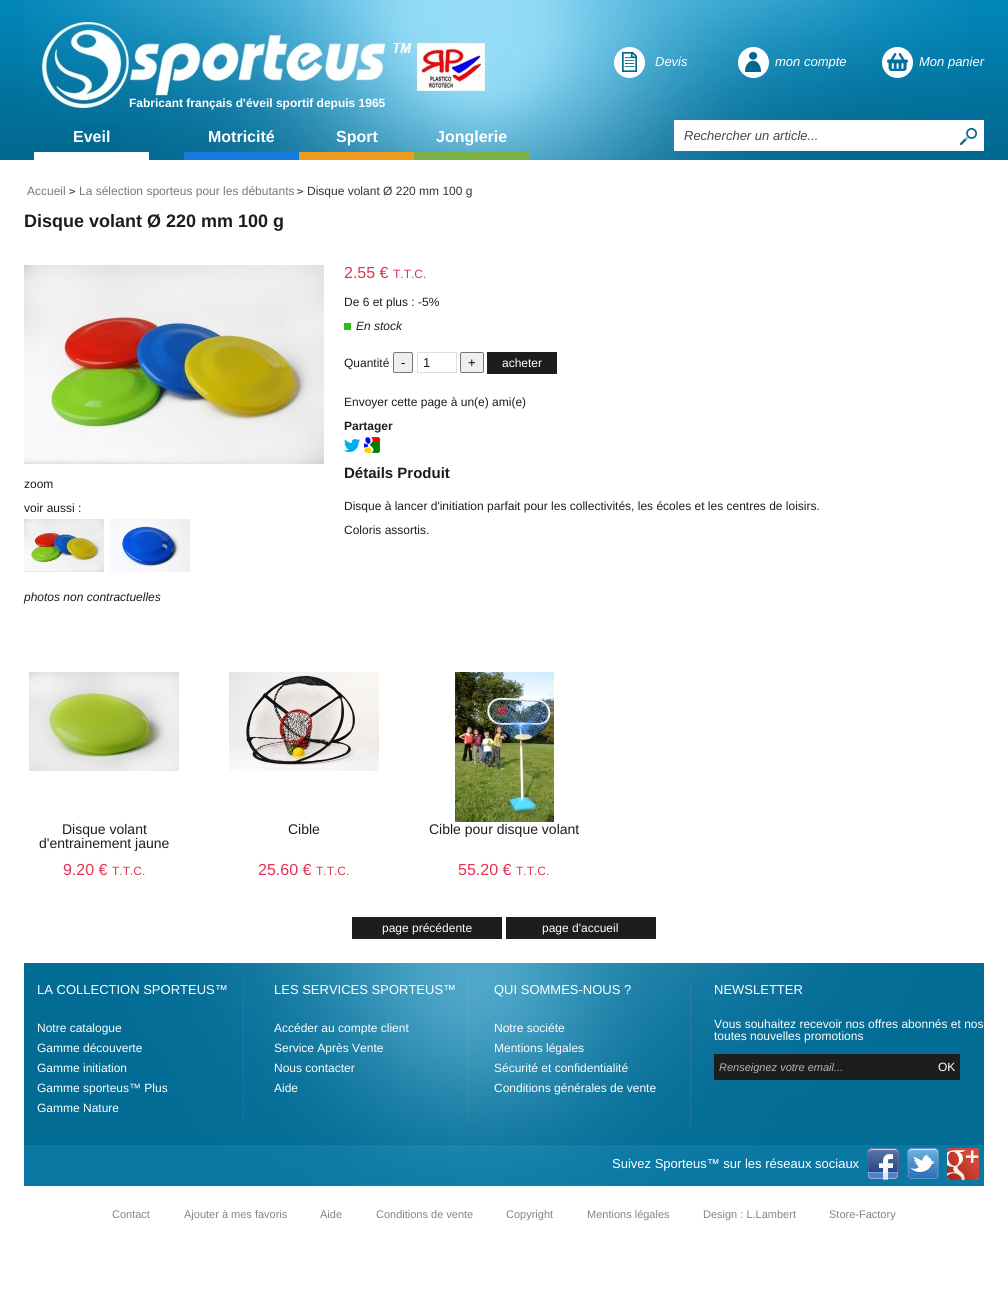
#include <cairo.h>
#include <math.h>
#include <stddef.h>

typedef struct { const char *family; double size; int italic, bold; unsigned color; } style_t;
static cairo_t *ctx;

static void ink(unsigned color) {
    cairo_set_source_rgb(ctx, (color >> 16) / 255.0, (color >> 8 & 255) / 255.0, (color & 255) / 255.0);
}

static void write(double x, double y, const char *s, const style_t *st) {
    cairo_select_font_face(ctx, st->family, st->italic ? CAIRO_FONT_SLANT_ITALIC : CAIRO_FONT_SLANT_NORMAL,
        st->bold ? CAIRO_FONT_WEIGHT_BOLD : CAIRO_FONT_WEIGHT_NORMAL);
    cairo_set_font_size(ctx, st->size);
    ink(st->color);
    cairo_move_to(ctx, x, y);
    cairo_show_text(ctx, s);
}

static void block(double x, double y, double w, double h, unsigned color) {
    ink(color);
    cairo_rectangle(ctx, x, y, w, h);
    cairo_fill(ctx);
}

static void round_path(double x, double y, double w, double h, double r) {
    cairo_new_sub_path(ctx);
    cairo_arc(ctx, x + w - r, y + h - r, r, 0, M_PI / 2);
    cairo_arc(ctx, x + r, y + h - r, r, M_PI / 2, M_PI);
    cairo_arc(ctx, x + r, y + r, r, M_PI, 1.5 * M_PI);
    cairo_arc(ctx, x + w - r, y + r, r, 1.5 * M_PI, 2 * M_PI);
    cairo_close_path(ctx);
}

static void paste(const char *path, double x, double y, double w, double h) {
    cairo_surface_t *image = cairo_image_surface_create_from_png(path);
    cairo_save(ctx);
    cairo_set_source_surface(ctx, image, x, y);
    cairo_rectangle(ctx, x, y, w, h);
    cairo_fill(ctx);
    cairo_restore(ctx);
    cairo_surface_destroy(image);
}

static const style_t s1 = {"Liberation Sans", 13, 1, 0, 0xffffff};
static const style_t s2 = {"Liberation Sans", 16, 0, 1, 0xffffff};
static const style_t s3 = {"Liberation Sans", 13, 1, 0, 0x484747};
static const style_t s4 = {"Liberation Sans", 12, 0, 0, 0x777777};
static const style_t s5 = {"Liberation Sans", 12, 0, 0, 0x333333};
static const style_t s6 = {"Liberation Sans", 18, 0, 1, 0x1d1d1e};
static const style_t s7 = {"Liberation Sans", 16, 0, 0, 0xe2344f};
static const style_t s8 = {"Liberation Sans", 12, 0, 0, 0xe2344f};
static const style_t s9 = {"Liberation Sans", 12, 0, 0, 0x1d1d1e};
static const style_t s10 = {"Liberation Sans", 12, 1, 0, 0x1d1d1e};
static const style_t s11 = {"Liberation Sans", 13, 0, 0, 0x000000};
static const style_t s12 = {"Liberation Sans", 13, 0, 0, 0x1d1d1e};
static const style_t s13 = {"Liberation Sans", 12, 0, 0, 0xffffff};
static const style_t s14 = {"Liberation Sans", 12, 0, 1, 0x1d1d1e};
static const style_t s15 = {"Liberation Sans", 15, 0, 1, 0x1d1d1e};
static const style_t s16 = {"Liberation Sans", 14, 0, 0, 0x1d1d1e};
static const style_t s17 = {"Liberation Sans", 12, 0, 1, 0xffffff};
static const style_t s18 = {"Liberation Sans", 13, 0, 0, 0xffffff};
static const style_t s19 = {"Liberation Sans", 11, 1, 0, 0xb4b4b5};
static const style_t s20 = {"Liberation Sans", 11, 0, 0, 0x868383};

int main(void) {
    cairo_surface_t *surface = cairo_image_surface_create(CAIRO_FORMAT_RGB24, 1008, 1298);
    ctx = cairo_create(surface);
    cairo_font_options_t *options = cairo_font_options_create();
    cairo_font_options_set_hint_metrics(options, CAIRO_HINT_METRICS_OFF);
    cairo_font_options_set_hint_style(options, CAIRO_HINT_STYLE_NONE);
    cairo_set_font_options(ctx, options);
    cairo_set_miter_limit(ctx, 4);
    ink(0xffffff);
    cairo_paint(ctx);
    paste("pic1.png", 0, 0, 1008, 160);
    paste("pic2.png", 24, 0, 945, 124);
    paste("pic3.png", 738, 47, 31, 31);
    write(775, 66, "mon compte", &s1);
    paste("pic4.png", 882, 47, 31, 31);
    write(919, 66, "Mon panier", &s1);
    paste("pic5.png", 120, 124, 723, 36);
    block(34, 152, 115, 8, 0xffffff);
    write(73, 142, "Eveil", &s2);
    block(184, 152, 115, 8, 0x177bdd);
    write(208, 142, "Motricité", &s2);
    block(299, 152, 115, 8, 0xef9b1e);
    write(336, 142, "Sport", &s2);
    block(414, 152, 115, 8, 0x7cb147);
    write(436, 142, "Jonglerie", &s2);
    paste("pic6.png", 674, 120, 310, 31);
    write(684, 140, "Rechercher un article...", &s3);
    paste("pic7.png", 69, 189, 7, 5);
    write(27, 195, "Accueil", &s4);
    paste("pic7.png", 297, 189, 7, 5);
    write(79, 195, "La sélection sporteus pour les débutants", &s4);
    write(307, 195, "Disque volant Ø 220 mm 100 g", &s5);
    write(24, 227, "Disque volant Ø 220 mm 100 g", &s6);
    write(344, 278, "2.55 €", &s7);
    write(393, 278, "T.T.C.", &s8);
    write(344, 306, "De 6 et plus : -5%", &s9);
    block(344, 323, 7, 7, 0x2cbe19);
    write(356, 330, "En stock", &s10);
    write(344, 367, "Quantité", &s9);
    ink(0xefefef);
    round_path(393.5, 352.5, 19, 20, 1.5);
    cairo_fill_preserve(ctx);
    ink(0x767676);
    cairo_set_line_width(ctx, 1);
    cairo_stroke(ctx);
    write(401, 367, "-", &s11);
    cairo_rectangle(ctx, 417.5, 352.5, 39, 20);
    ink(0xdedede);
    cairo_stroke(ctx);
    write(423, 367, "1", &s12);
    ink(0xefefef);
    round_path(460.5, 352.5, 23, 20, 1.5);
    cairo_fill_preserve(ctx);
    ink(0x767676);
    cairo_stroke(ctx);
    write(468, 367, "+", &s11);
    block(487, 352, 70, 22, 0x1d1d1e);
    write(502, 367, "acheter", &s13);
    write(344, 406, "Envoyer cette page à un(e) ami(e)", &s9);
    write(344, 430, "Partager", &s14);
    paste("pic8.png", 344, 439, 16, 13);
    paste("pic9.png", 364, 437, 16, 16);
    paste("pic10.png", 24, 265, 300, 199);
    write(24, 488, "zoom", &s9);
    write(24, 512, "voir aussi :", &s9);
    paste("pic11.png", 24, 519, 80, 53);
    paste("pic12.png", 110, 519, 80, 53);
    write(24, 601, "photos non contractuelles", &s10);
    write(344, 478, "Détails Produit", &s15);
    write(344, 510, "Disque à lancer d'initiation parfait pour les collectivités, les écoles et les centres de loisirs.", &s9);
    write(344, 534, "Coloris assortis.", &s9);
    paste("pic13.png", 29, 672, 150, 99);
    write(62, 834, "Disque volant", &s16);
    write(39, 848, "d'entrainement jaune", &s16);
    write(63, 875, "9.20 €", &s7);
    write(112, 875, "T.T.C.", &s8);
    paste("pic14.png", 229, 672, 150, 99);
    write(288, 834, "Cible", &s16);
    write(258, 875, "25.60 €", &s7);
    write(316, 875, "T.T.C.", &s8);
    paste("pic15.png", 455, 672, 99, 150);
    write(429, 834, "Cible pour disque volant", &s16);
    write(458, 875, "55.20 €", &s7);
    write(516, 875, "T.T.C.", &s8);
    block(352, 917, 150, 22, 0x1d1d1e);
    write(382, 932, "page précédente", &s13);
    block(506, 917, 150, 22, 0x1d1d1e);
    write(542, 932, "page d'accueil", &s13);
    paste("pic16.png", 614, 47, 31, 31);
    write(655, 66, "Devis", &s1);
    write(129, 107, "Fabricant français d'éveil sportif depuis 1965", &s17);
    paste("pic17.png", 24, 963, 960, 223);
    write(37, 994, "LA COLLECTION SPORTEUS™", &s18);
    write(274, 994, "LES SERVICES SPORTEUS™", &s18);
    write(494, 994, "QUI SOMMES-NOUS ?", &s18);
    write(714, 994, "NEWSLETTER", &s18);
    write(37, 1032, "Notre catalogue", &s13);
    write(37, 1052, "Gamme découverte", &s13);
    write(37, 1072, "Gamme initiation", &s13);
    write(37, 1092, "Gamme sporteus™ Plus", &s13);
    write(37, 1112, "Gamme Nature", &s13);
    write(274, 1032, "Accéder au compte client", &s13);
    write(274, 1052, "Service Après Vente", &s13);
    write(274, 1072, "Nous contacter", &s13);
    write(274, 1092, "Aide", &s13);
    write(494, 1032, "Notre sociéte", &s13);
    write(494, 1052, "Mentions légales", &s13);
    write(494, 1072, "Sécurité et confidentialité", &s13);
    write(494, 1092, "Conditions générales de vente", &s13);
    write(714, 1028, "Vous souhaitez recevoir nos offres abonnés et nos", &s13);
    write(714, 1040, "toutes nouvelles promotions", &s13);
    block(714, 1054, 246, 26, 0x1d1d1e);
    cairo_save(ctx);
    cairo_rectangle(ctx, 719, 1061, 210, 12);
    cairo_clip(ctx);
    write(719, 1071, "Renseignez votre email...", &s19);
    cairo_restore(ctx);
    write(938, 1071, "OK", &s13);
    write(612, 1168, "Suivez Sporteus™ sur les réseaux sociaux", &s18);
    paste("pic18.png", 867, 1148, 32, 32);
    paste("pic19.png", 907, 1148, 32, 32);
    paste("pic20.png", 947, 1148, 32, 32);
    write(112, 1218, "Contact", &s20);
    write(184, 1218, "Ajouter à mes favoris", &s20);
    write(320, 1218, "Aide", &s20);
    write(376, 1218, "Conditions de vente", &s20);
    write(506, 1218, "Copyright", &s20);
    write(587, 1218, "Mentions légales", &s20);
    write(703, 1218, "Design : L.Lambert", &s20);
    write(829, 1218, "Store-Factory", &s20);
    cairo_surface_write_to_png(surface, "screenshot.png");
    cairo_font_options_destroy(options);
    cairo_destroy(ctx);
    cairo_surface_destroy(surface);
    return 0;
}
